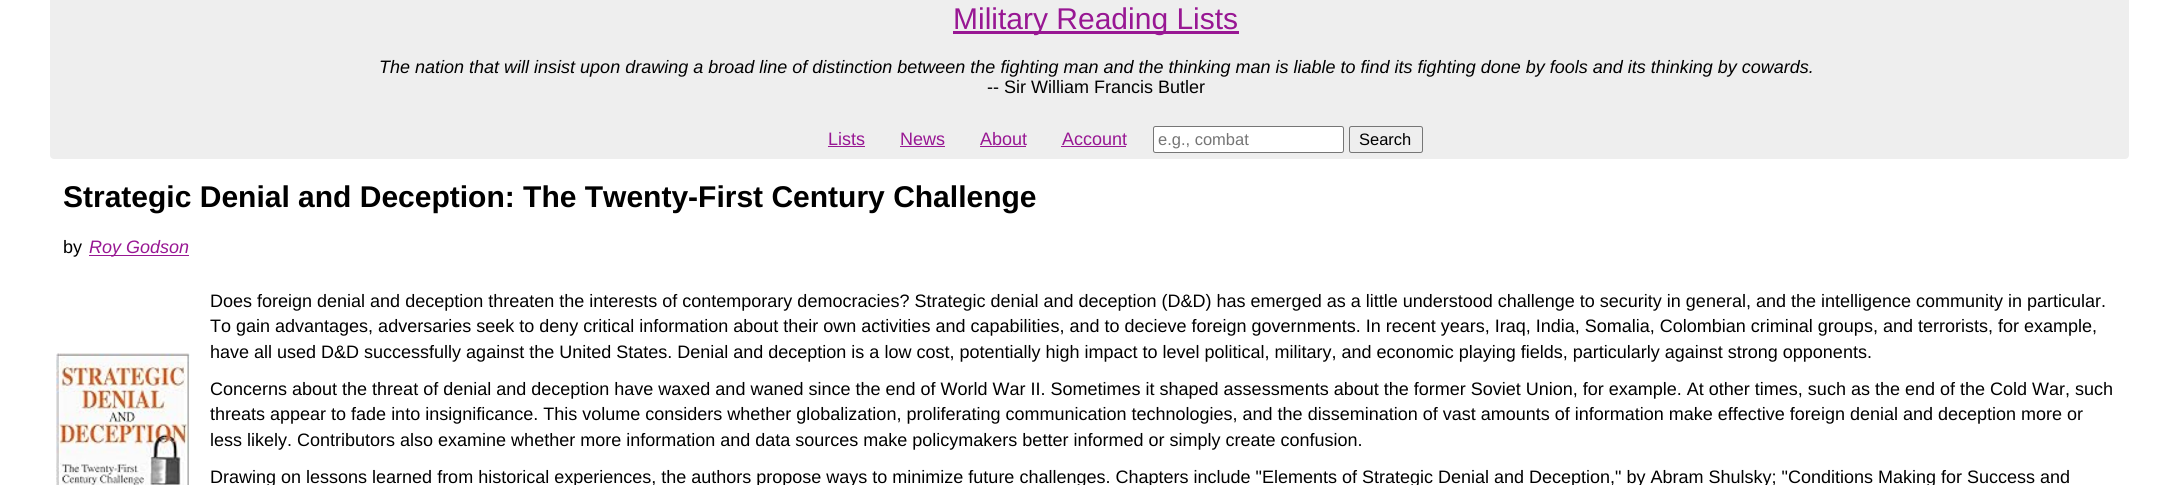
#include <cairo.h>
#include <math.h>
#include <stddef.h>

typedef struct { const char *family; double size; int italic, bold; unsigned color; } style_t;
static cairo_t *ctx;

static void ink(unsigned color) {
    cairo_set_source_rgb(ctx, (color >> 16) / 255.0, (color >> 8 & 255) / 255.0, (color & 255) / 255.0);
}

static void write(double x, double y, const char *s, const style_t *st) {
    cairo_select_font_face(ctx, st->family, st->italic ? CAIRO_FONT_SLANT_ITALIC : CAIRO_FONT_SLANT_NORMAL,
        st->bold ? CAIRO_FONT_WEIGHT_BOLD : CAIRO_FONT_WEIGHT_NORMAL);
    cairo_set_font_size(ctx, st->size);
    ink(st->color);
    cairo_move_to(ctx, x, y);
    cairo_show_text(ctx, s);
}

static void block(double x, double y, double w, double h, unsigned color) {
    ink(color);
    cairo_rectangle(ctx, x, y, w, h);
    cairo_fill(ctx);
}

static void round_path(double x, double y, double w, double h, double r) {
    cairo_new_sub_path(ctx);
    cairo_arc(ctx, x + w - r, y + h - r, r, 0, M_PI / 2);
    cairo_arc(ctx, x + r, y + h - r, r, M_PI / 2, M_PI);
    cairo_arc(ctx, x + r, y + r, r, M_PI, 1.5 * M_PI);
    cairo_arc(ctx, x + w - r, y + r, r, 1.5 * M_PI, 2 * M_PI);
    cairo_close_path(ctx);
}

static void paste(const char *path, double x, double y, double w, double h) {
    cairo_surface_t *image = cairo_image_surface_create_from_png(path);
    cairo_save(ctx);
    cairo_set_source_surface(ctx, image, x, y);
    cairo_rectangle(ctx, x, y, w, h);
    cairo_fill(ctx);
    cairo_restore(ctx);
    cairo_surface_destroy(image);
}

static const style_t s1 = {"Liberation Sans", 30, 0, 0, 0x981793};
static const style_t s2 = {"Liberation Sans", 18, 1, 0, 0x000000};
static const style_t s3 = {"Liberation Sans", 18, 0, 0, 0x000000};
static const style_t s4 = {"Liberation Sans", 18, 0, 0, 0x981793};
static const style_t s5 = {"Liberation Sans", 16.5, 0, 0, 0x757575};
static const style_t s6 = {"Liberation Sans", 16.5, 0, 0, 0x000000};
static const style_t s7 = {"Liberation Sans", 30, 0, 1, 0x000000};
static const style_t s8 = {"Liberation Sans", 18, 1, 0, 0x981793};

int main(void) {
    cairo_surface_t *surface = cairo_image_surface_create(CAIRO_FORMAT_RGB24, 2178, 485);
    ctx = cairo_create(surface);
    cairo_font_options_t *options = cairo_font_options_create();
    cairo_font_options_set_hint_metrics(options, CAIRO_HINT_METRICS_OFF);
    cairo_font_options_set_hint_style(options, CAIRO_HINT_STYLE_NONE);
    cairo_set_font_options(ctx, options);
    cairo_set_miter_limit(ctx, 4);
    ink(0xffffff);
    cairo_paint(ctx);
    ink(0xeeeeee);
    round_path(50, -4, 2079, 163, 4);
    cairo_fill(ctx);
    block(953, 31, 286, 3, 0x981793);
    write(953, 29, "Military Reading Lists", &s1);
    write(379, 73, "The nation that will insist upon drawing a broad line of distinction between the fighting man and the thinking man is liable to find its fighting done by fools and its thinking by cowards.", &s2);
    write(987, 93, "-- Sir William Francis Butler", &s3);
    write(828, 145, "Lists", &s4);
    block(828, 146, 37, 1, 0x981793);
    write(900, 145, "News", &s4);
    block(900, 146, 45, 1, 0x981793);
    write(980, 145, "About", &s4);
    block(980, 146, 46, 1, 0x981793);
    write(1062, 145, "Account", &s4);
    block(1061, 146, 65, 1, 0x981793);
    ink(0xffffff);
    round_path(1153.5, 126.5, 190, 26, 2);
    cairo_fill_preserve(ctx);
    ink(0x767676);
    cairo_set_line_width(ctx, 1);
    cairo_stroke(ctx);
    write(1158, 145, "e.g., combat", &s5);
    round_path(1349.5, 126.5, 73, 26, 2);
    ink(0x767676);
    cairo_stroke(ctx);
    write(1359, 145, "Search", &s6);
    write(63, 207, "Strategic Denial and Deception: The Twenty-First Century Challenge", &s7);
    write(63, 253, "by", &s3);
    block(89, 255, 100, 1, 0x981793);
    write(89, 253, "Roy Godson", &s8);
    paste("pic1.png", 56, 353, 134, 132);
    write(210, 307, "Does foreign denial and deception threaten the interests of contemporary democracies? Strategic denial and deception (D&D) has emerged as a little understood challenge to security in general, and the intelligence community in particular.", &s3);
    write(210, 332, "To gain advantages, adversaries seek to deny critical information about their own activities and capabilities, and to decieve foreign governments. In recent years, Iraq, India, Somalia, Colombian criminal groups, and terrorists, for example,", &s3);
    write(210, 358, "have all used D&D successfully against the United States. Denial and deception is a low cost, potentially high impact to level political, military, and economic playing fields, particularly against strong opponents.", &s3);
    write(210, 395, "Concerns about the threat of denial and deception have waxed and waned since the end of World War II. Sometimes it shaped assessments about the former Soviet Union, for example. At other times, such as the end of the Cold War, such", &s3);
    write(210, 420, "threats appear to fade into insignificance. This volume considers whether globalization, proliferating communication technologies, and the dissemination of vast amounts of information make effective foreign denial and deception more or", &s3);
    write(210, 446, "less likely. Contributors also examine whether more information and data sources make policymakers better informed or simply create confusion.", &s3);
    write(210, 483, "Drawing on lessons learned from historical experiences, the authors propose ways to minimize future challenges. Chapters include \"Elements of Strategic Denial and Deception,\" by Abram Shulsky; \"Conditions Making for Success and", &s3);
    cairo_surface_write_to_png(surface, "screenshot.png");
    cairo_font_options_destroy(options);
    cairo_destroy(ctx);
    cairo_surface_destroy(surface);
    return 0;
}
